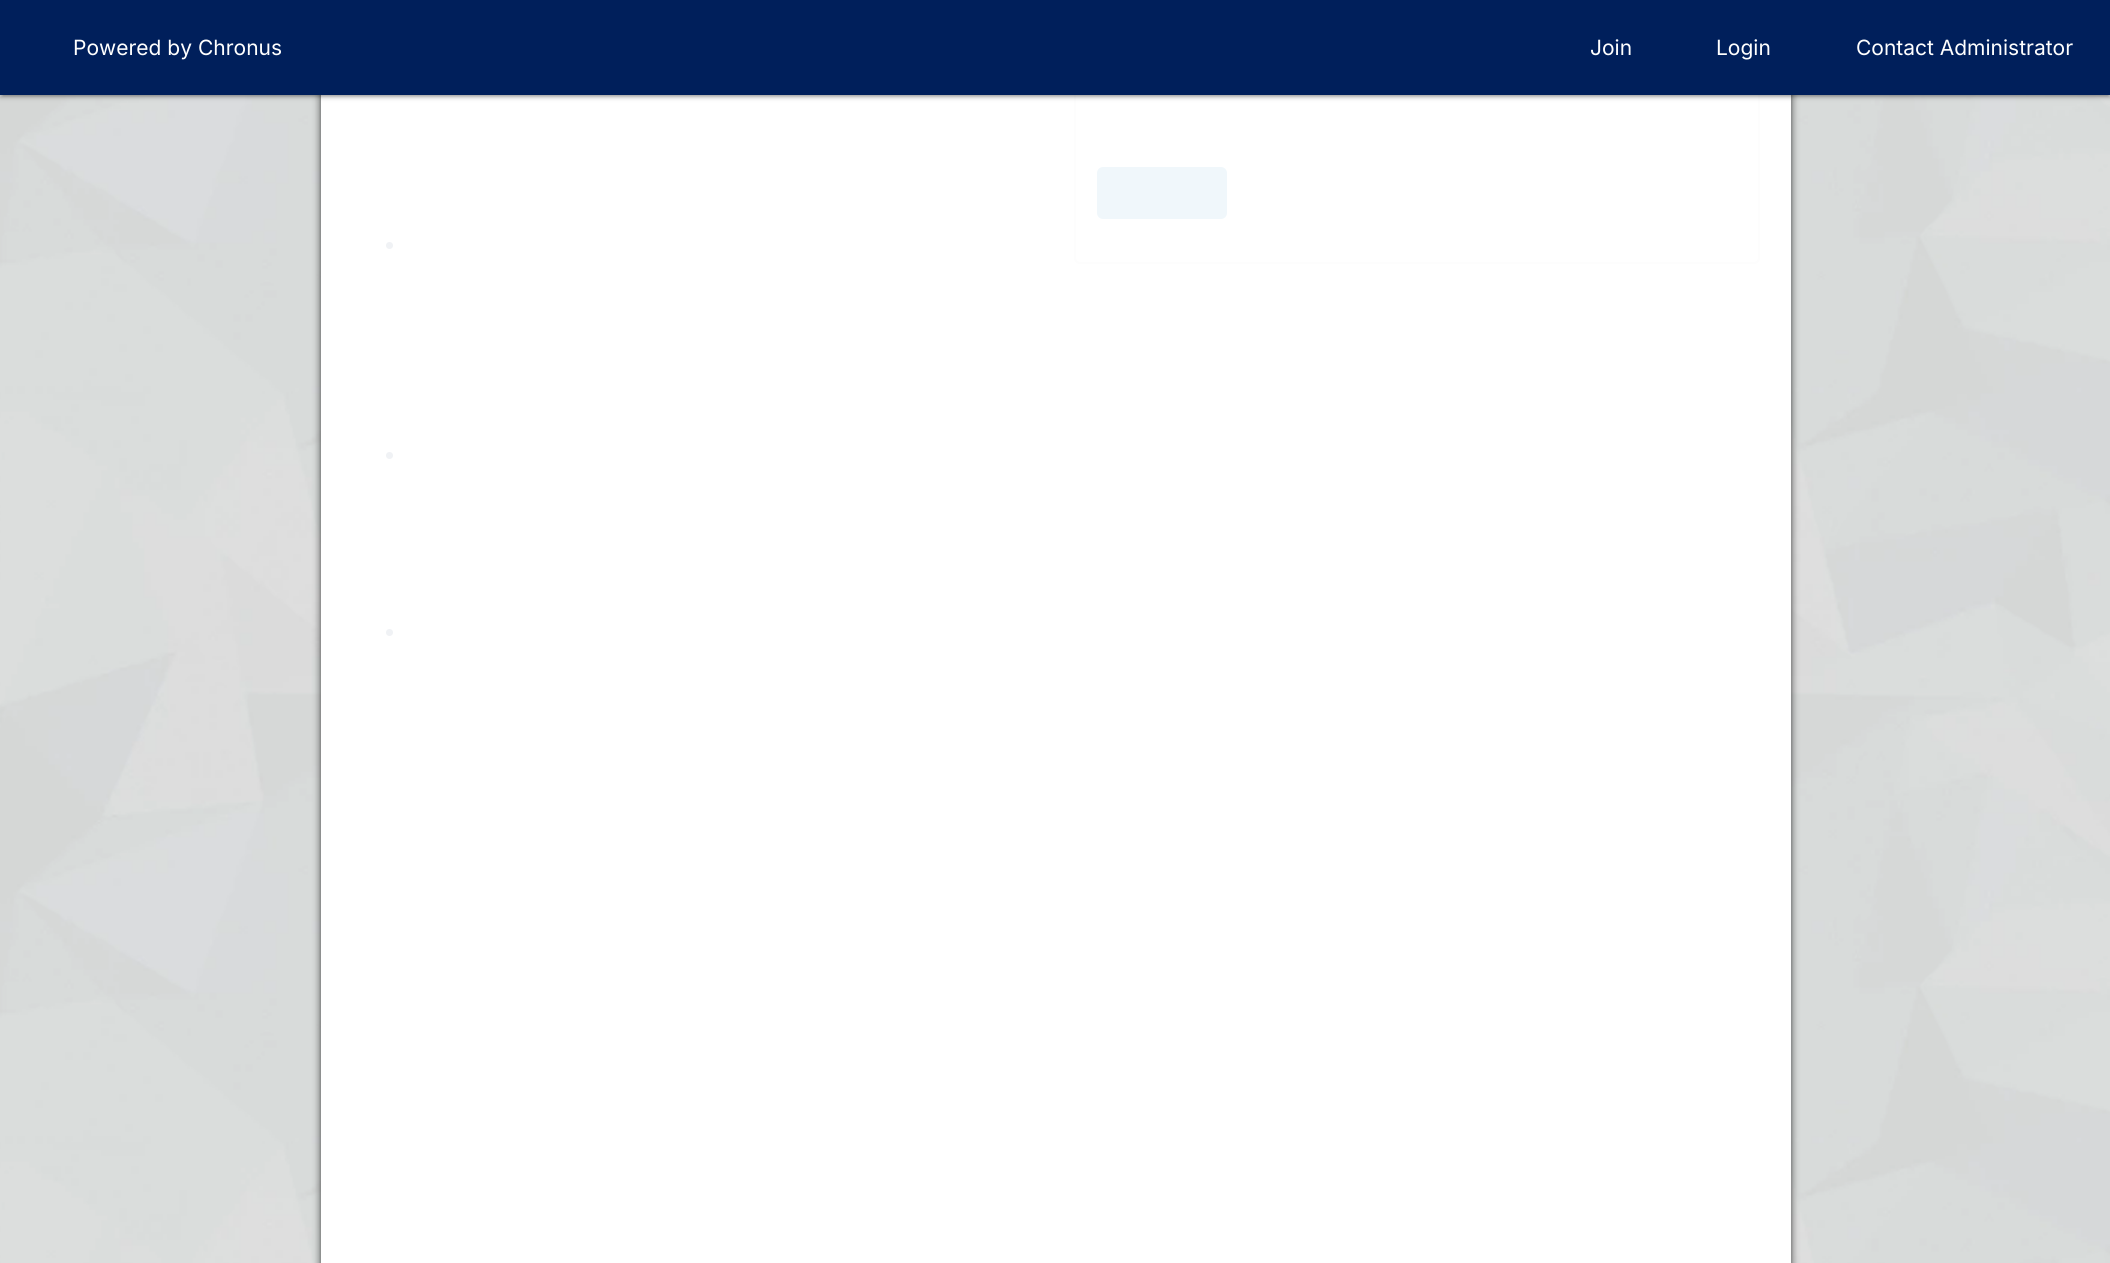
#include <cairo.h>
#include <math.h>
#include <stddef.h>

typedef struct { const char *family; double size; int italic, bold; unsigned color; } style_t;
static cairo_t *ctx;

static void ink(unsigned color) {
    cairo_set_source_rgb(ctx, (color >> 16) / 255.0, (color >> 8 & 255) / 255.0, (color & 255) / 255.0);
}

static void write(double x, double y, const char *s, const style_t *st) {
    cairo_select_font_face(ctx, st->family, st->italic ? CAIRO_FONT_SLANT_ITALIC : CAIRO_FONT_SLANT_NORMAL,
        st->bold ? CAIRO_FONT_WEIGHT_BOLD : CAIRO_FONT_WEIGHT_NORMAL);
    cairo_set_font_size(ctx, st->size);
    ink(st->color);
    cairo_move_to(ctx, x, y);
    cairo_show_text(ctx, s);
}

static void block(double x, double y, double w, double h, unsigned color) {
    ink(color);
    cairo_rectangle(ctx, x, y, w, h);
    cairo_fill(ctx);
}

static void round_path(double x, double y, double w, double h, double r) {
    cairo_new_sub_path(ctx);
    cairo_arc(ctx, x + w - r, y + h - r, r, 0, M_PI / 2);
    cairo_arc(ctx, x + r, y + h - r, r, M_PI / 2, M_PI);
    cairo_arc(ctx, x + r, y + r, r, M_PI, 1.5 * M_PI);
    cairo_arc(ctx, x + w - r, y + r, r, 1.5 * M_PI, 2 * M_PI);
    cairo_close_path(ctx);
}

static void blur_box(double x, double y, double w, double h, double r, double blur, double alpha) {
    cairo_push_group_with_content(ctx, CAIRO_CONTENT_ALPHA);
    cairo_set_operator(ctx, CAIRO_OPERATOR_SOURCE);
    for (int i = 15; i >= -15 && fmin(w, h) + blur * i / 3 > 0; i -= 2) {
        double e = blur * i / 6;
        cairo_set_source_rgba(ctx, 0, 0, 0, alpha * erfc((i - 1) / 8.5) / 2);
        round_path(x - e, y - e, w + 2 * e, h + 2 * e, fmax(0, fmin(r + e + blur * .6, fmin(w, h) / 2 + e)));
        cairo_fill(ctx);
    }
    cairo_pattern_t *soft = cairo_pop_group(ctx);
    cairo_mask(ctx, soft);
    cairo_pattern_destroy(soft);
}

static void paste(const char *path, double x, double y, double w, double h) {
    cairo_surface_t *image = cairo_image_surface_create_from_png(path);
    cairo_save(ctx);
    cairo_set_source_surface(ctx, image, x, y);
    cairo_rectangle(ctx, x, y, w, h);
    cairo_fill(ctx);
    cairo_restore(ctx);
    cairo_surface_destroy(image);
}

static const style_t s1 = {"Inter", 21, 0, 0, 0xffffff};

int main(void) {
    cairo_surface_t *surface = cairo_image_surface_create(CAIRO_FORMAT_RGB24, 2110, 1263);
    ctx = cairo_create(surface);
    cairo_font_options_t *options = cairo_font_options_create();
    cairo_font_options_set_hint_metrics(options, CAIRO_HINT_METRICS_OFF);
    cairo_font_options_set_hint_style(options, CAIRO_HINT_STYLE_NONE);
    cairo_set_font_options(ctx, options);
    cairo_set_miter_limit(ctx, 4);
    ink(0xffffff);
    cairo_paint(ctx);
    paste("pic1.png", 0, 95, 2110, 1168);
    ink(0x000000);
    blur_box(321, -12, 1470, 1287, 0, 4, 0.75);
    block(321, 95, 1470, 1168, 0xffffff);
    round_path(1075, -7, 684, 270, 5);
    ink(0xfdfdfd);
    cairo_stroke(ctx);
    ink(0xf0f7fb);
    round_path(1097, 167, 130, 52, 6);
    cairo_fill(ctx);
    ink(0xf0f2f5);
    cairo_arc(ctx, 389.5, 245.5, 3.5, 0, 2 * M_PI);
    cairo_fill(ctx);
    cairo_arc(ctx, 389.5, 455.5, 3.5, 0, 2 * M_PI);
    cairo_fill(ctx);
    cairo_arc(ctx, 389.5, 632.5, 3.5, 0, 2 * M_PI);
    cairo_fill(ctx);
    ink(0x000000);
    blur_box(0, 2, 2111, 94, 0, 4, 0.12);
    blur_box(3, 8, 2105, 88, 0, 1, 0.2);
    blur_box(0, 3, 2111, 95, 0, 1.5, 0.14);
    block(0, 0, 2110, 95, 0x001f5b);
    write(73, 55, "Powered by Chronus", &s1);
    write(1590, 55, "Join", &s1);
    write(1716, 55, "Login", &s1);
    write(1856, 55, "Contact Administrator", &s1);
    cairo_surface_write_to_png(surface, "screenshot.png");
    cairo_font_options_destroy(options);
    cairo_destroy(ctx);
    cairo_surface_destroy(surface);
    return 0;
}
